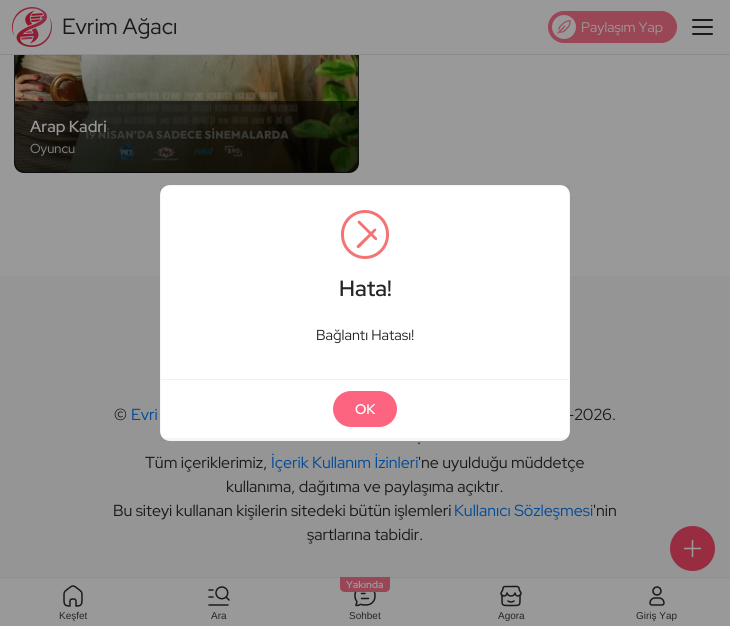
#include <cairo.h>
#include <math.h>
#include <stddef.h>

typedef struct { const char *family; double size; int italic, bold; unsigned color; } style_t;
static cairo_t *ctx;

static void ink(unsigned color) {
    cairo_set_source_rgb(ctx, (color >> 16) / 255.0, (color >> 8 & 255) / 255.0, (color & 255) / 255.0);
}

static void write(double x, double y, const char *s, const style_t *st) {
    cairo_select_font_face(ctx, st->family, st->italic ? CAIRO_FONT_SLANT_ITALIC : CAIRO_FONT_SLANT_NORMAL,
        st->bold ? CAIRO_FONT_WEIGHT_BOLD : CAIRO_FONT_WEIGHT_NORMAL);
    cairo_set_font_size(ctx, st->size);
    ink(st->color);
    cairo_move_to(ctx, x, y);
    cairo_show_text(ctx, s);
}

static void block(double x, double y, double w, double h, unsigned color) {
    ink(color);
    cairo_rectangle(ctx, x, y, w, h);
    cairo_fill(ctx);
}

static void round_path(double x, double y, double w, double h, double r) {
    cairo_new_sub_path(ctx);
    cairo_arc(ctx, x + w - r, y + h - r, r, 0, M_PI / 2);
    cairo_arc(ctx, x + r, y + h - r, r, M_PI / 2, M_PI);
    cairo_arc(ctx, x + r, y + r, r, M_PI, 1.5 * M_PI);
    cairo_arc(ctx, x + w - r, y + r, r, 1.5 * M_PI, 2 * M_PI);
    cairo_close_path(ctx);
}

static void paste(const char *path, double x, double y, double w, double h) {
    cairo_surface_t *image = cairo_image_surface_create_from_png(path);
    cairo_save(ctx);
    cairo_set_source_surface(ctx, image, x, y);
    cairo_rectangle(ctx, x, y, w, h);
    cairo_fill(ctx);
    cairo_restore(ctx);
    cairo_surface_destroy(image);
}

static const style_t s1 = {"Red Hat Display", 22, 0, 0, 0x191919};
static const style_t s2 = {"Red Hat Display", 14, 0, 0, 0x999999};
static const style_t s3 = {"Red Hat Display Medium", 16, 0, 0, 0x999999};
static const style_t s4 = {"Red Hat Display", 13, 0, 0, 0x868685};
static const style_t s5 = {"Red Hat Display", 16, 0, 0, 0x191919};
static const style_t s6 = {"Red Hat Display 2 SemiBold", 22, 0, 0, 0x252525};
static const style_t s7 = {"Red Hat Display", 14.5, 0, 0, 0x252525};
static const style_t s8 = {"Red Hat Display Medium", 14, 0, 0, 0xffffff};
static const style_t s9 = {"Red Hat Display", 16, 0, 0, 0x004a99};
static const style_t s10 = {"Liberation Sans", 10, 0, 0, 0x252525};
static const style_t s11 = {"Red Hat Display SemiBold", 10, 0, 0, 0x999999};

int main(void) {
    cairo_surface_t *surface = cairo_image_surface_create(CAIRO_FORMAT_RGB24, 730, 626);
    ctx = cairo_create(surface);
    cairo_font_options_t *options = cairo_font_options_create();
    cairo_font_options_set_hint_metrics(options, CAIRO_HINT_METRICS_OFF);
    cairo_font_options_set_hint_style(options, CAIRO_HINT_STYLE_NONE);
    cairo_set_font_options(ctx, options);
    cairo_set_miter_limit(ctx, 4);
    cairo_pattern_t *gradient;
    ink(0x959595);
    cairo_paint(ctx);
    block(0, 55, 730, 221, 0x999999);
    paste("pic4.png", 15, 162, 343, 10);
    gradient = cairo_pattern_create_linear(187, 173, 187, -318);
    cairo_pattern_add_color_stop_rgba(gradient, 0, 0, 0, 0, 0.92);
    cairo_pattern_add_color_stop_rgba(gradient, 1, 0, 0, 0, 0.6);
    cairo_set_source(ctx, gradient);
    cairo_pattern_destroy(gradient);
    round_path(14, -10, 345, 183, 10);
    cairo_fill(ctx);
    block(0, 0, 730, 54, 0x999999);
    block(0, 54, 730, 1, 0x8c8c8c);
    paste("pic1.png", 12, 7, 40, 40);
    write(62, 34, "Evrim Ağacı", &s1);
    ink(0x994656);
    round_path(548.5, 11.5, 128, 31, 15.5);
    cairo_fill_preserve(ctx);
    cairo_set_line_width(ctx, 1);
    cairo_stroke(ctx);
    ink(0x999999);
    cairo_arc(ctx, 564, 27, 12, 0, 2 * M_PI);
    cairo_fill(ctx);
    paste("pic2.png", 557, 20, 14, 14);
    write(581, 32, "Paylaşım Yap", &s2);
    ink(0x982d41);
    cairo_new_path(ctx);
    cairo_arc(ctx, 692.5, 548.5, 22.5, 0, 2 * M_PI);
    cairo_fill(ctx);
    paste("pic3.png", 683, 539, 19, 19);
    ink(0x191919);
    round_path(692, 19, 21, 2, 1);
    cairo_fill(ctx);
    round_path(692, 26, 21, 2, 1);
    cairo_fill(ctx);
    round_path(692, 33, 21, 2, 1);
    cairo_fill(ctx);
    paste("pic5.png", 15, 55, 343, 117);
    cairo_set_source_rgba(ctx, 0, 0, 0, 0.6);
    cairo_new_path(ctx);
    cairo_move_to(ctx, 15, 101);
    cairo_line_to(ctx, 358, 101);
    cairo_line_to(ctx, 358, 162);
    cairo_curve_to(ctx, 358, 167.5, 353.5, 172, 348, 172);
    cairo_line_to(ctx, 25, 172);
    cairo_curve_to(ctx, 19.5, 172, 15, 167.5, 15, 162);
    cairo_close_path(ctx);
    cairo_fill(ctx);
    write(30, 132, "Arap Kadri", &s3);
    write(30, 153, "Oyuncu", &s4);
    write(567, 420, "-2026.", &s5);
    ink(0xffffff);
    round_path(160, 185, 410, 256, 10);
    cairo_fill(ctx);
    cairo_rectangle(ctx, 160.5, 185.5, 409, 255);
    cairo_set_source_rgba(ctx, 0.161, 0.161, 0.161, 0.05);
    cairo_stroke(ctx);
    cairo_rectangle(ctx, 165, 439, 400, 1);
    cairo_fill(ctx);
    round_path(342.5, 211.5, 45, 46, 22.5);
    ink(0xf27474);
    cairo_set_line_width(ctx, 3);
    cairo_stroke(ctx);
    cairo_new_path(ctx);
    cairo_move_to(ctx, 360, 221);
    cairo_line_to(ctx, 377, 238);
    cairo_line_to(ctx, 377, 239);
    cairo_curve_to(ctx, 376.5, 242, 374, 239, 372, 237);
    cairo_line_to(ctx, 361, 226);
    cairo_curve_to(ctx, 360.5, 225.5, 356.5, 222.5, 358, 221);
    cairo_curve_to(ctx, 358.5, 220.5, 359.5, 220.5, 360, 221);
    cairo_close_path(ctx);
    cairo_fill(ctx);
    cairo_new_path(ctx);
    cairo_move_to(ctx, 357, 245.5);
    cairo_line_to(ctx, 374, 229);
    cairo_line_to(ctx, 375, 228.5);
    cairo_curve_to(ctx, 378, 229, 375, 232, 373, 234);
    cairo_line_to(ctx, 362, 245);
    cairo_curve_to(ctx, 361.5, 245.5, 359, 249.5, 357, 247.5);
    cairo_curve_to(ctx, 356.5, 247, 356.5, 246, 357, 245.5);
    cairo_close_path(ctx);
    cairo_fill(ctx);
    write(339, 296, "Hata!", &s6);
    write(316, 340, "Bağlantı Hatası!", &s7);
    block(161, 379, 408, 1, 0xf0f0f0);
    cairo_set_source_rgba(ctx, 0.161, 0.161, 0.161, 0.05);
    cairo_rectangle(ctx, 161, 438, 408, 1);
    cairo_fill(ctx);
    ink(0xfd6480);
    round_path(333, 391, 64, 36, 18);
    cairo_fill(ctx);
    write(355, 414, "OK", &s8);
    write(114, 420, "©", &s5);
    write(131, 420, "Evri", &s9);
    write(417, 444, ".", &s5);
    write(145, 468, "Tüm içeriklerimiz,", &s5);
    write(271, 468, "İçerik Kullanım İzinleri", &s9);
    write(418, 468, "'ne uyulduğu müddetçe", &s5);
    write(226, 492, "kullanıma, dağıtıma ve paylaşıma açıktır.", &s5);
    write(113, 516, "Bu siteyi kullanan kişilerin sitedeki bütün işlemleri", &s5);
    write(454, 516, "Kullanıcı Sözleşmesi", &s9);
    write(593, 516, "'nin", &s5);
    write(307, 540, "şartlarına tabidir.", &s5);
    block(0, 578, 730, 48, 0x999999);
    block(0, 577, 730, 1, 0x909090);
    paste("pic6.png", 63, 585, 20, 22);
    write(59, 619, "Keşfet", &s10);
    paste("pic7.png", 208, 586, 22, 20);
    write(211, 619, "Ara", &s10);
    ink(0x994656);
    cairo_new_path(ctx);
    cairo_move_to(ctx, 340, 577);
    cairo_line_to(ctx, 390, 577);
    cairo_line_to(ctx, 390, 587);
    cairo_curve_to(ctx, 390, 590, 388, 592, 385, 592);
    cairo_line_to(ctx, 345, 592);
    cairo_curve_to(ctx, 342, 592, 340, 590, 340, 587);
    cairo_close_path(ctx);
    cairo_fill(ctx);
    write(346, 588, "Yakında", &s11);
    paste("pic8.png", 354, 592, 22, 15);
    write(349, 619, "Sohbet", &s10);
    paste("pic9.png", 500, 585, 22, 22);
    write(498, 619, "Agora", &s10);
    paste("pic10.png", 649, 586, 16, 20);
    write(636, 619, "Giriş Yap", &s10);
    cairo_surface_write_to_png(surface, "screenshot.png");
    cairo_font_options_destroy(options);
    cairo_destroy(ctx);
    cairo_surface_destroy(surface);
    return 0;
}
